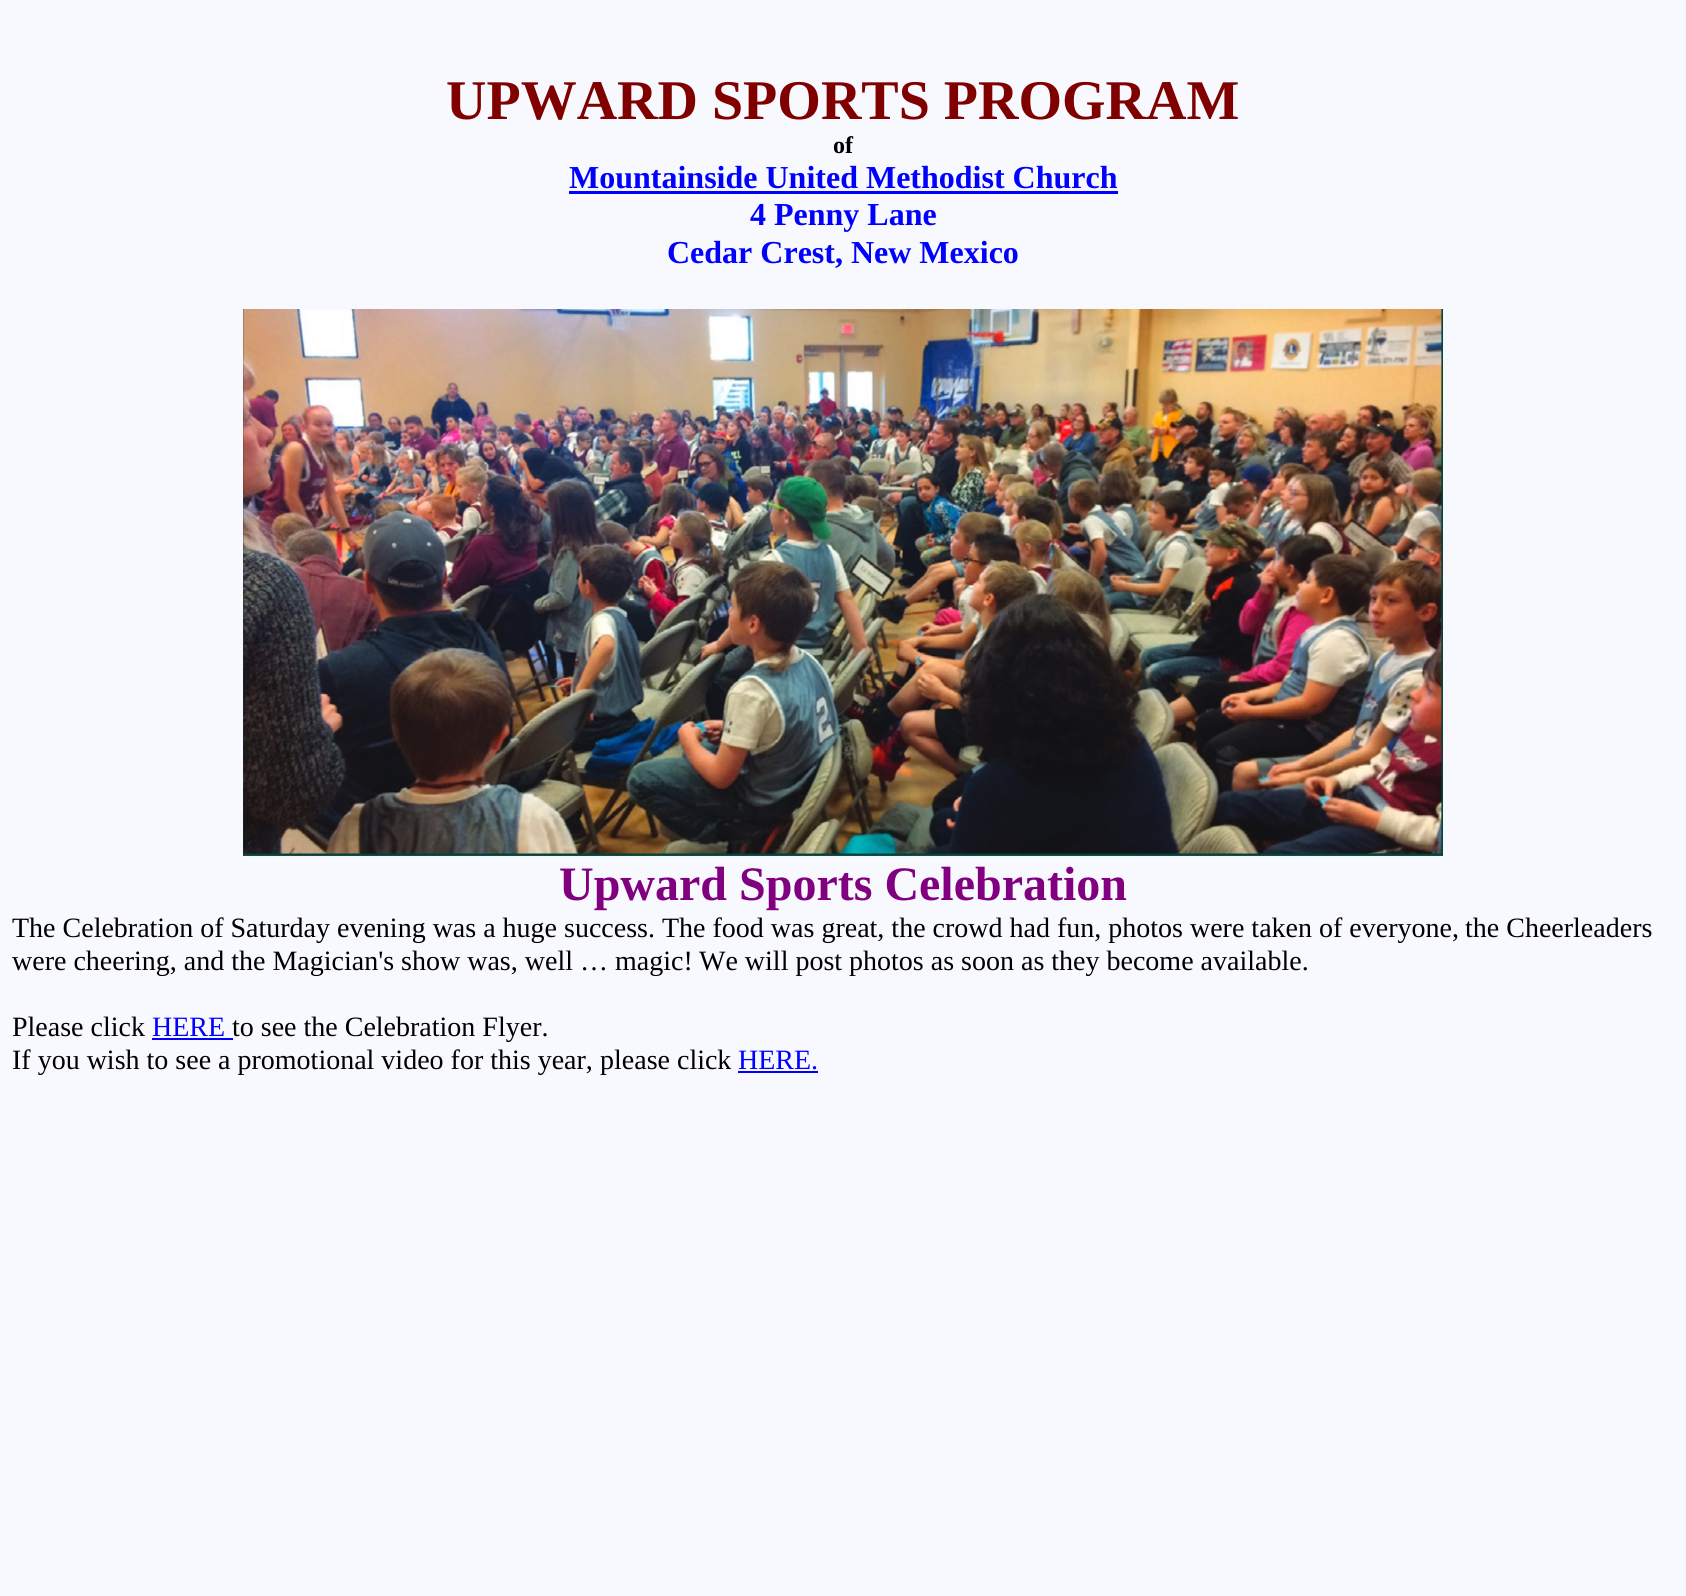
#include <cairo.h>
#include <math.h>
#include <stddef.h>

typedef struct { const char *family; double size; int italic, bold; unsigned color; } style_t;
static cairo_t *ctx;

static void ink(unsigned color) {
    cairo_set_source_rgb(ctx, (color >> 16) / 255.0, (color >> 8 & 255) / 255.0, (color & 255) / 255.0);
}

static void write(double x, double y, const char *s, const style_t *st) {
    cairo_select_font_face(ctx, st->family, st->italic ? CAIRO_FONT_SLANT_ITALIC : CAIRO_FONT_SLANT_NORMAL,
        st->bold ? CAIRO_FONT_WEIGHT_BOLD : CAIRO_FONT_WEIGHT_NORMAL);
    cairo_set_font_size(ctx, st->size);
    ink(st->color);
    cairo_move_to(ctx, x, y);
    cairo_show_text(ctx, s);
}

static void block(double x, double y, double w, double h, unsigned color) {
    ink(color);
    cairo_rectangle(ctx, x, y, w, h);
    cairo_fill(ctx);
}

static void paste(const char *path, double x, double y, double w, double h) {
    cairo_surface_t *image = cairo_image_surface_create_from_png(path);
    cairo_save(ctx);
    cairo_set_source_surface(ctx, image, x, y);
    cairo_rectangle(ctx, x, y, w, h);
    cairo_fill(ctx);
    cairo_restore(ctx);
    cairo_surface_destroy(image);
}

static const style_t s1 = {"Liberation Serif", 56, 0, 1, 0x800000};
static const style_t s2 = {"Liberation Serif", 24, 0, 1, 0x000000};
static const style_t s3 = {"Liberation Serif", 32, 0, 1, 0x0000ff};
static const style_t s4 = {"Liberation Serif", 48, 0, 1, 0x800080};
static const style_t s5 = {"Liberation Serif", 28, 0, 0, 0x000000};
static const style_t s6 = {"Liberation Serif", 28, 0, 0, 0x0000ff};

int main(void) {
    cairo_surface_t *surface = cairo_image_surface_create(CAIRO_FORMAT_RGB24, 1686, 1596);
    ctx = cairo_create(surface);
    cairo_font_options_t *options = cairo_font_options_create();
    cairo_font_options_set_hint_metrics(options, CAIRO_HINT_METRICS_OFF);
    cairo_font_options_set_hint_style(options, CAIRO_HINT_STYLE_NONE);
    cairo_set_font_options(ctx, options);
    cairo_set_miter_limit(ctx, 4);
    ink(0xf8f8ff);
    cairo_paint(ctx);
    write(446, 119, "UPWARD SPORTS PROGRAM", &s1);
    write(833, 153, "of", &s2);
    write(569, 188, "Mountainside United Methodist Church", &s3);
    block(569, 191, 549, 3, 0x0000ff);
    write(750, 225, "4 Penny Lane", &s3);
    write(667, 263, "Cedar Crest, New Mexico", &s3);
    paste("pic1.png", 243, 309, 1200, 548);
    write(559, 900, "Upward Sports Celebration", &s4);
    write(12, 937, "The Celebration of Saturday evening was a huge success.", &s5);
    write(662, 937, "The food was great, the crowd had fun, photos were taken of everyone,", &s5);
    write(1465, 937, "the Cheerleaders", &s5);
    write(12, 970, "were cheering, and the Magician's show was, well … magic!", &s5);
    write(699, 970, "We will post photos as soon as they become available.", &s5);
    write(12, 1036, "Please click", &s5);
    write(152, 1036, "HERE", &s6);
    block(152, 1038, 81, 2, 0x0000ff);
    write(232, 1036, "to see the Celebration Flyer.", &s5);
    write(12, 1069, "If you wish to see a promotional video for this year,", &s5);
    write(600, 1069, "please click", &s5);
    write(738, 1069, "HERE.", &s6);
    block(738, 1071, 80, 2, 0x0000ff);
    cairo_surface_write_to_png(surface, "screenshot.png");
    cairo_font_options_destroy(options);
    cairo_destroy(ctx);
    cairo_surface_destroy(surface);
    return 0;
}
